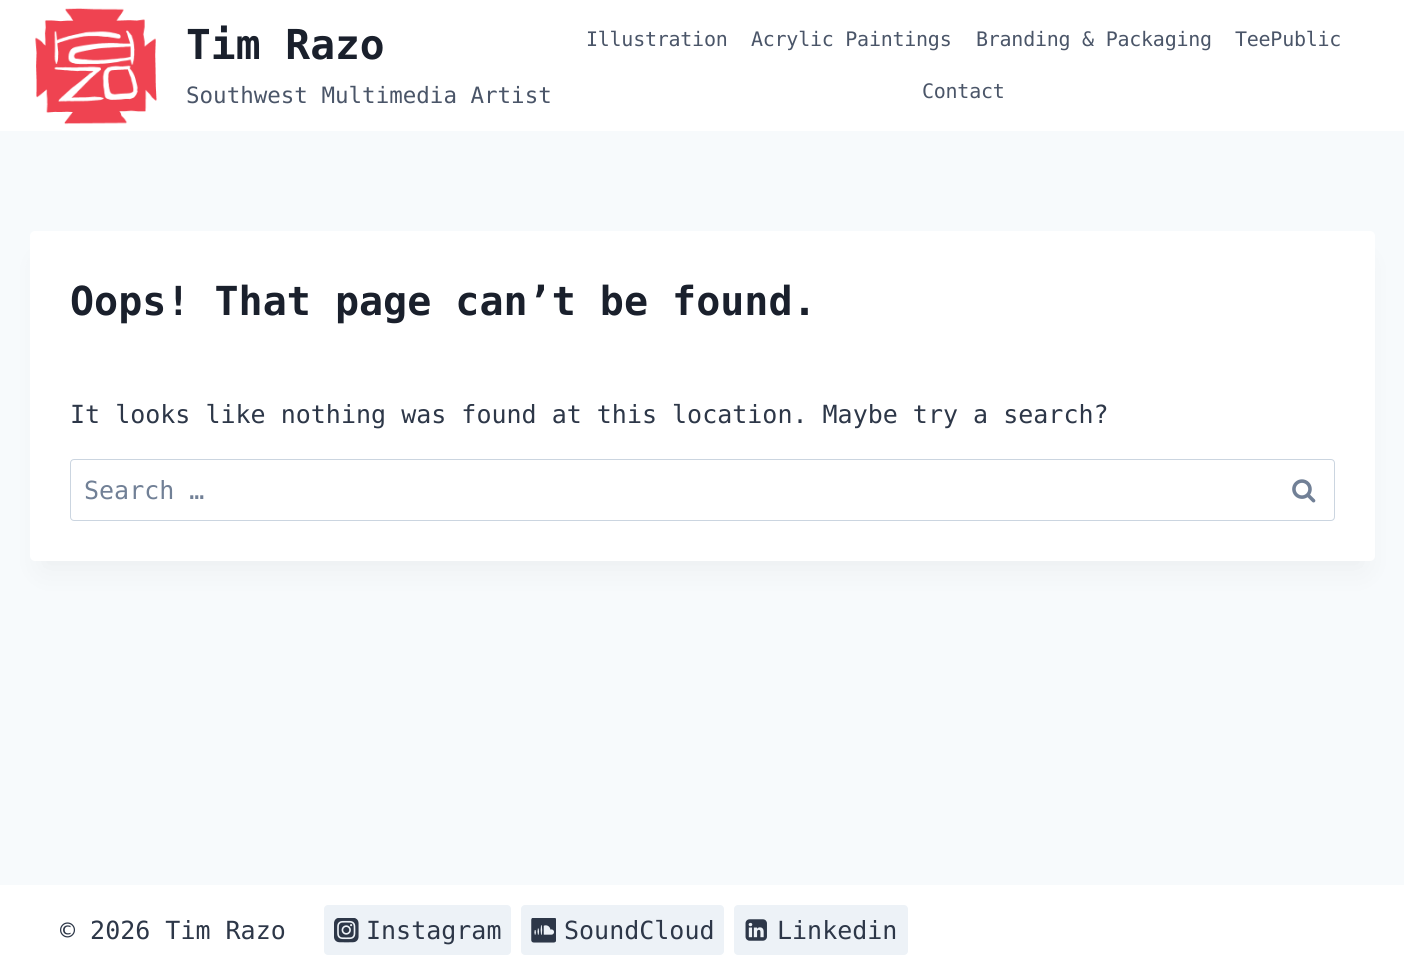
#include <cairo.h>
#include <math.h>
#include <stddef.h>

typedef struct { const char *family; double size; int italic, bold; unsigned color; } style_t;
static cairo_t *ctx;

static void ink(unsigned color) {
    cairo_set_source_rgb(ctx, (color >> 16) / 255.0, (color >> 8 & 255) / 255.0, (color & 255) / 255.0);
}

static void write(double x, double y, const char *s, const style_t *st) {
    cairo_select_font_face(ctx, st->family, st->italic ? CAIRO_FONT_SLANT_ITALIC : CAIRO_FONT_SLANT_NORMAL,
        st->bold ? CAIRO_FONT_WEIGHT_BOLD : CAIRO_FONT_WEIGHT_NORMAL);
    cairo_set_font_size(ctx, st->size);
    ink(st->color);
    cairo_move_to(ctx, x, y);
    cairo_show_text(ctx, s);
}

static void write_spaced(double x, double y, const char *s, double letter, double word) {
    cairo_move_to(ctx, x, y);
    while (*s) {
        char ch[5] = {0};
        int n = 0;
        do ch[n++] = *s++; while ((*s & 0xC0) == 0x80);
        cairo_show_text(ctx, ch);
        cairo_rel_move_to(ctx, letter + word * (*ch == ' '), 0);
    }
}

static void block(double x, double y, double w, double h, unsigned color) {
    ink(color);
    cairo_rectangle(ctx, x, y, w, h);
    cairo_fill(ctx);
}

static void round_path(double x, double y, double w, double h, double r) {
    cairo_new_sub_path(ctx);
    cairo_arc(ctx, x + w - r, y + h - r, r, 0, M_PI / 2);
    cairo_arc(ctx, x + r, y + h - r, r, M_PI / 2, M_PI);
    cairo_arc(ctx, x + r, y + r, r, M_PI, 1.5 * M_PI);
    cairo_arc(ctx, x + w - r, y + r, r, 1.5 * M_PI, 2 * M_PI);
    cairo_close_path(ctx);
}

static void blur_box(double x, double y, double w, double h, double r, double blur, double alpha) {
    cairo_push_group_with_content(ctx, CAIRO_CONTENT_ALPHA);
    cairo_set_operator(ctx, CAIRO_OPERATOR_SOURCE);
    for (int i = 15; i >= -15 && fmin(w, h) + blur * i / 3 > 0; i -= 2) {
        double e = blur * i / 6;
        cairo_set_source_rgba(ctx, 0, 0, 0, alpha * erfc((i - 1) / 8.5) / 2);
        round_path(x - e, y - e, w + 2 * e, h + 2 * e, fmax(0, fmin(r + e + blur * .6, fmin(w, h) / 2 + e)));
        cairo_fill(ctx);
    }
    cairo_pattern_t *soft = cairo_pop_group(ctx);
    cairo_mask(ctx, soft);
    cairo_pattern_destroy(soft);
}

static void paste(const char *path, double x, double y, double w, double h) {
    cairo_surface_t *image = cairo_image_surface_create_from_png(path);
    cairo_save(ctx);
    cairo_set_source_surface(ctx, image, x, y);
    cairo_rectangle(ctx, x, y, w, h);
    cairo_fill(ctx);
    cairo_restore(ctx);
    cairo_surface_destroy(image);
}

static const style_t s1 = {"DejaVu Sans Mono", 41.25, 0, 1, 0x1a202c};
static const style_t s2 = {"DejaVu Sans Mono", 22.5, 0, 0, 0x4a5568};
static const style_t s3 = {"DejaVu Sans Mono", 40, 0, 1, 0x1a202c};
static const style_t s4 = {"DejaVu Sans Mono", 25, 0, 0, 0x2d3748};
static const style_t s5 = {"DejaVu Sans Mono", 25, 0, 0, 0x718096};

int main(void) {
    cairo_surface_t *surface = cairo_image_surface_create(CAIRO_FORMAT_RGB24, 1404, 975);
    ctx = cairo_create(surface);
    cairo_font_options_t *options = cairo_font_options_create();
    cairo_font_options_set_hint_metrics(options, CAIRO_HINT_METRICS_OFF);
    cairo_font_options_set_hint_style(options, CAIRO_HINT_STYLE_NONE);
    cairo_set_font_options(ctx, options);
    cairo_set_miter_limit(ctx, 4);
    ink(0xf7fafc);
    cairo_paint(ctx);
    block(0, 0, 1404, 131, 0xffffff);
    paste("pic1.png", 35, 8, 122, 117);
    write(186, 59, "Tim Razo", &s1);
    write(186, 103, "Southwest Multimedia Artist", &s2);
    cairo_set_font_size(ctx, 20);
    write_spaced(586, 46, "Illustration", -0.25, 0);
    write_spaced(751, 46, "Acrylic Paintings", -0.25, 0);
    write_spaced(976, 46, "Branding & Packaging", -0.25, 0);
    write_spaced(1235, 46, "TeePublic", -0.25, 0);
    write_spaced(922, 98, "Contact", -0.25, 0);
    ink(0x000000);
    blur_box(43, 263, 1320, 305, 0, 15.5, 0.05);
    ink(0xffffff);
    round_path(30, 231, 1345, 330, 5);
    cairo_fill(ctx);
    write(70, 315, "Oops! That page can’t be found.", &s3);
    write(70, 423, "It looks like nothing was found at this location. Maybe try a search?", &s4);
    round_path(70.5, 459.5, 1264, 61, 3.5);
    ink(0xcbd5e0);
    cairo_set_line_width(ctx, 1);
    cairo_stroke(ctx);
    write(84, 499, "Search …", &s5);
    paste("pic2.png", 1292, 479, 24, 24);
    block(0, 885, 1404, 90, 0xffffff);
    write(60, 939, "© 2026 Tim Razo", &s4);
    ink(0xedf2f7);
    round_path(324, 905, 187, 50, 4);
    cairo_fill(ctx);
    paste("pic3.png", 334, 918, 25, 25);
    write(366, 939, "Instagram", &s4);
    ink(0xedf2f7);
    round_path(521, 905, 203, 50, 4);
    cairo_fill(ctx);
    paste("pic4.png", 531, 918, 25, 25);
    write(564, 939, "SoundCloud", &s4);
    ink(0xedf2f7);
    round_path(734, 905, 174, 50, 4);
    cairo_fill(ctx);
    paste("pic5.png", 745, 919, 22, 22);
    write(777, 939, "Linkedin", &s4);
    cairo_surface_write_to_png(surface, "screenshot.png");
    cairo_font_options_destroy(options);
    cairo_destroy(ctx);
    cairo_surface_destroy(surface);
    return 0;
}
